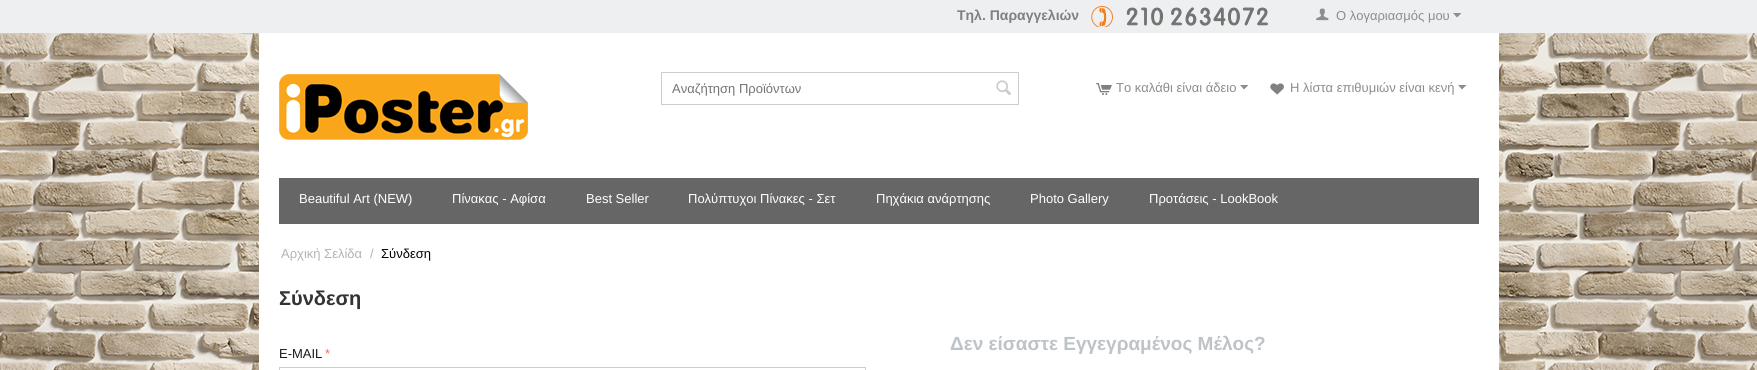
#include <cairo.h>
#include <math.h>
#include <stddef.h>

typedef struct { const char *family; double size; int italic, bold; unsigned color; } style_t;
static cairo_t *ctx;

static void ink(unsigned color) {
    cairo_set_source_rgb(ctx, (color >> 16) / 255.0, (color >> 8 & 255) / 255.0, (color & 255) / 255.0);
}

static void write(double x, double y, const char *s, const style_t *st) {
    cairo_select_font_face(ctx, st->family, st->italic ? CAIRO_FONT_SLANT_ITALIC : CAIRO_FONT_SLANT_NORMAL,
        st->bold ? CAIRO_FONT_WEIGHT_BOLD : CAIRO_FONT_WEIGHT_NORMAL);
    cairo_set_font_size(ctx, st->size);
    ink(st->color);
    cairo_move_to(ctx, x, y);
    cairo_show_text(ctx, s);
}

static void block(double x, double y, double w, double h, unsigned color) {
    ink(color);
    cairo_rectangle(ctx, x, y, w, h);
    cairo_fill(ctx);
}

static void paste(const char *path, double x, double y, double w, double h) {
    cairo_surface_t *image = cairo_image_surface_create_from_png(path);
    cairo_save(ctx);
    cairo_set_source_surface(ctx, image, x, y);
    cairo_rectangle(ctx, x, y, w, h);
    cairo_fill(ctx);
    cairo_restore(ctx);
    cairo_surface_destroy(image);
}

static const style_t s1 = {"Liberation Sans", 14, 0, 1, 0x808080};
static const style_t s2 = {"Liberation Sans", 13, 0, 0, 0x8d8d8d};
static const style_t s3 = {"Liberation Sans", 13, 0, 0, 0x737373};
static const style_t s4 = {"Liberation Sans", 13, 0, 0, 0xffffff};
static const style_t s5 = {"Liberation Sans", 13, 0, 0, 0xb3b3b3};
static const style_t s6 = {"Liberation Sans", 13, 0, 0, 0x000000};
static const style_t s7 = {"Liberation Sans", 20, 0, 1, 0x333333};
static const style_t s8 = {"Liberation Sans", 13, 0, 0, 0x1a1a1a};
static const style_t s9 = {"Liberation Sans", 13, 0, 0, 0xea7162};
static const style_t s10 = {"Liberation Sans", 19, 0, 1, 0xbdc3c7};

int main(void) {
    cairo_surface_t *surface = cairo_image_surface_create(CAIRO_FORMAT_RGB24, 1757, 370);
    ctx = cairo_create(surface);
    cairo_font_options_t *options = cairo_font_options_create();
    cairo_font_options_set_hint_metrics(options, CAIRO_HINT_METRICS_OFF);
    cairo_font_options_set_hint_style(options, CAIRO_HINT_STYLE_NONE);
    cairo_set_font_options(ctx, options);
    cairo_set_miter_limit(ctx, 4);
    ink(0xffffff);
    cairo_paint(ctx);
    paste("pic1.png", 0, 33, 1757, 337);
    block(0, 0, 1757, 33, 0xedeff1);
    write(957, 20, "Τηλ. Παραγγελιών", &s1);
    paste("pic2.png", 1091, 6, 177, 21);
    paste("pic3.png", 1316, 8, 13, 13);
    write(1336, 20, "Ο λογαριασμός μου", &s2);
    cairo_new_path(ctx);
    cairo_move_to(ctx, 1457, 17.5);
    cairo_line_to(ctx, 1453, 13);
    cairo_line_to(ctx, 1461.5, 13);
    cairo_close_path(ctx);
    cairo_fill(ctx);
    block(259, 33, 1240, 337, 0xffffff);
    paste("pic4.png", 279, 74, 249, 66);
    cairo_rectangle(ctx, 661.5, 72.5, 357, 32);
    ink(0xcdcdcd);
    cairo_set_line_width(ctx, 1);
    cairo_stroke(ctx);
    write(672, 93, "Αναζήτηση Προϊόντων", &s3);
    paste("pic5.png", 996, 80, 15, 16);
    paste("pic6.png", 1096, 83, 16, 12);
    write(1116, 92, "Το καλάθι είναι άδειο", &s2);
    cairo_new_path(ctx);
    cairo_move_to(ctx, 1244, 89.5);
    cairo_line_to(ctx, 1240, 85);
    cairo_line_to(ctx, 1248.5, 85);
    cairo_close_path(ctx);
    cairo_fill(ctx);
    paste("pic7.png", 1270, 83, 14, 12);
    write(1290, 92, "Η λίστα επιθυμιών είναι κενή", &s2);
    cairo_new_path(ctx);
    cairo_move_to(ctx, 1462, 89.5);
    cairo_line_to(ctx, 1458, 85);
    cairo_line_to(ctx, 1466.5, 85);
    cairo_close_path(ctx);
    cairo_fill(ctx);
    block(279, 178, 1200, 46, 0x666666);
    write(299, 203, "Beautiful Art (NEW)", &s4);
    write(452, 203, "Πίνακας - Αφίσα", &s4);
    write(586, 203, "Best Seller", &s4);
    write(688, 203, "Πολύπτυχοι Πίνακες - Σετ", &s4);
    write(876, 203, "Πηχάκια ανάρτησης", &s4);
    write(1030, 203, "Photo Gallery", &s4);
    write(1149, 203, "Προτάσεις - LookBook", &s4);
    write(281, 258, "Αρχική Σελίδα", &s5);
    write(370, 258, "/", &s5);
    write(381, 258, "Σύνδεση", &s6);
    write(279, 305, "Σύνδεση", &s7);
    write(279, 358, "E-MAIL", &s8);
    write(325, 358, "*", &s9);
    cairo_rectangle(ctx, 279.5, 367.5, 586, 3);
    ink(0xcdcdcd);
    cairo_stroke(ctx);
    write(950, 350, "Δεν είσαστε Εγγεγραμένος Μέλος?", &s10);
    cairo_surface_write_to_png(surface, "screenshot.png");
    cairo_font_options_destroy(options);
    cairo_destroy(ctx);
    cairo_surface_destroy(surface);
    return 0;
}
